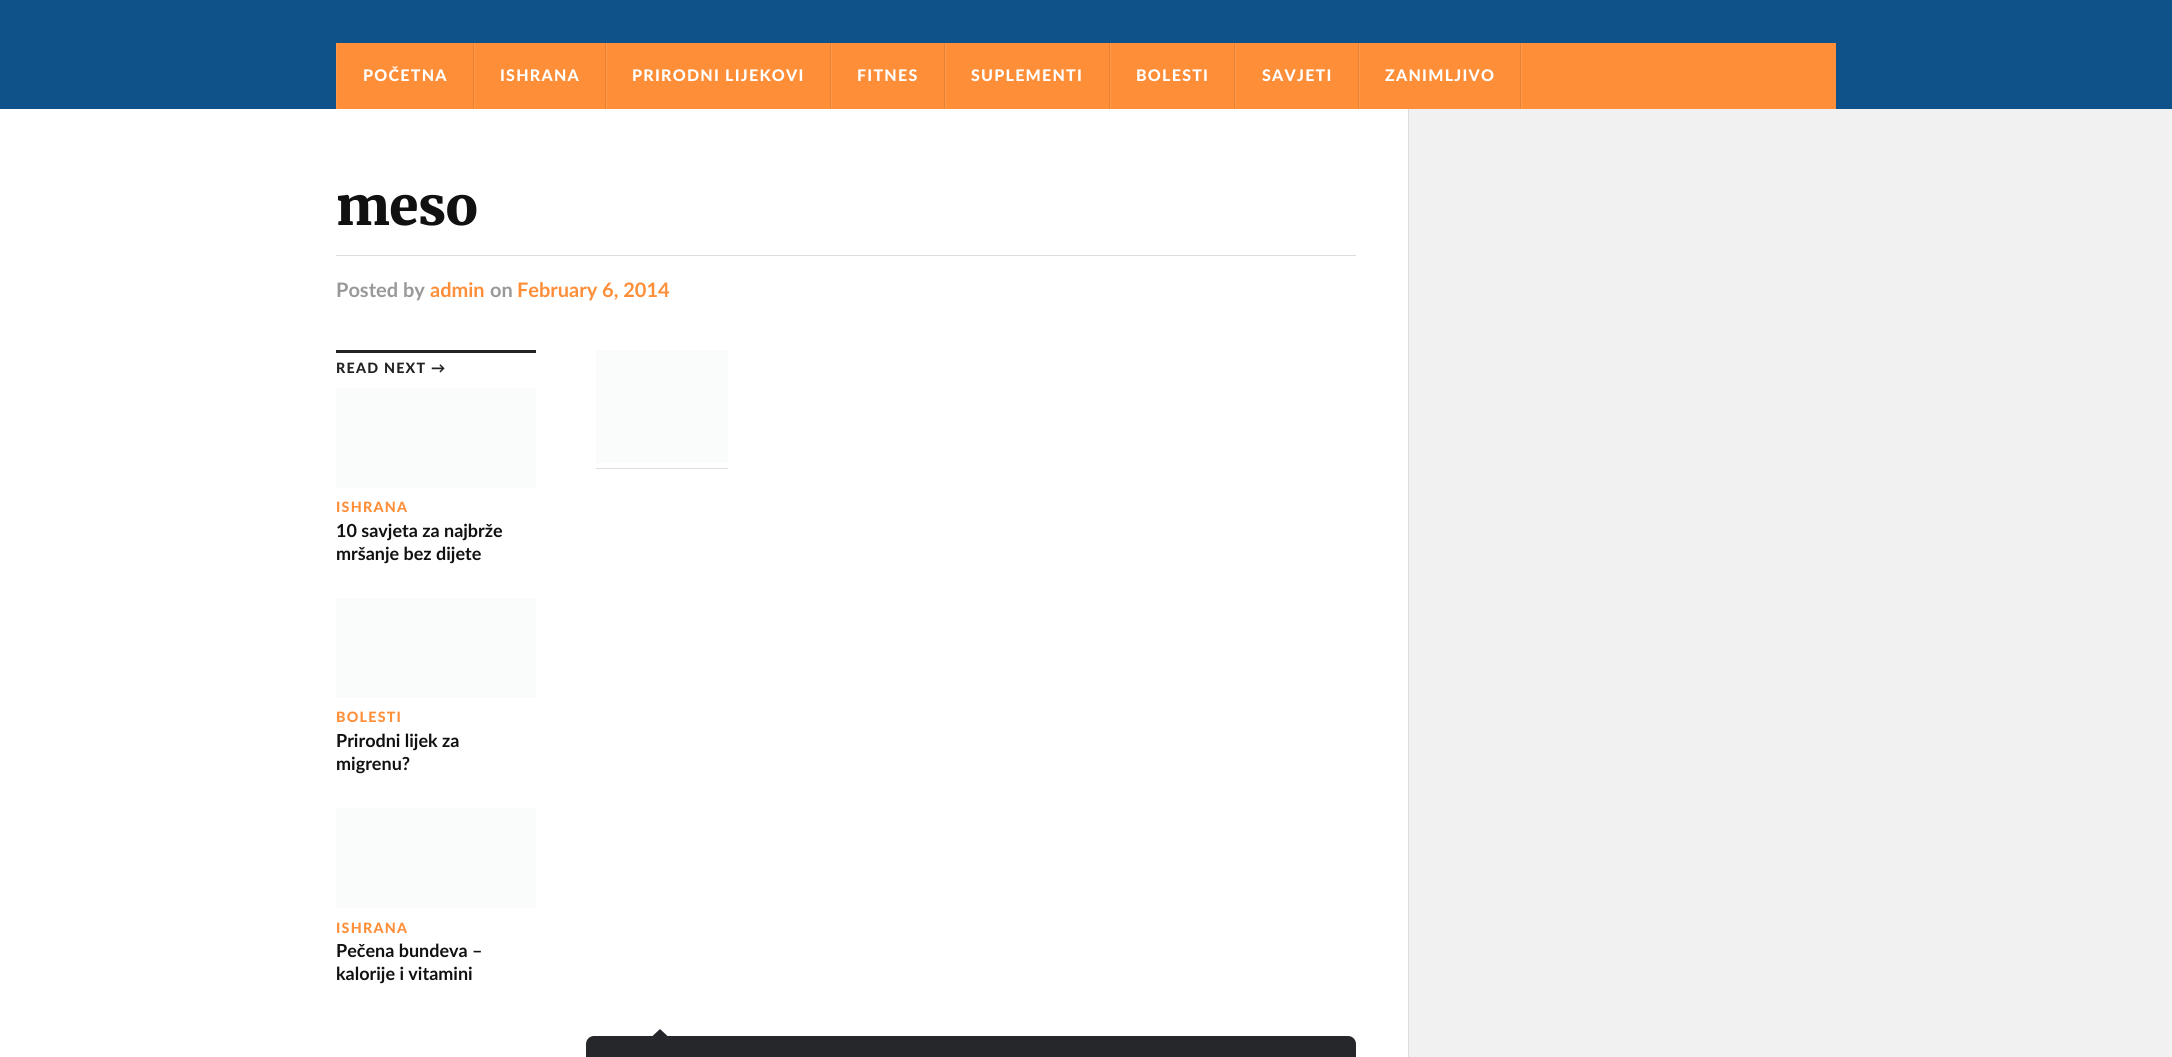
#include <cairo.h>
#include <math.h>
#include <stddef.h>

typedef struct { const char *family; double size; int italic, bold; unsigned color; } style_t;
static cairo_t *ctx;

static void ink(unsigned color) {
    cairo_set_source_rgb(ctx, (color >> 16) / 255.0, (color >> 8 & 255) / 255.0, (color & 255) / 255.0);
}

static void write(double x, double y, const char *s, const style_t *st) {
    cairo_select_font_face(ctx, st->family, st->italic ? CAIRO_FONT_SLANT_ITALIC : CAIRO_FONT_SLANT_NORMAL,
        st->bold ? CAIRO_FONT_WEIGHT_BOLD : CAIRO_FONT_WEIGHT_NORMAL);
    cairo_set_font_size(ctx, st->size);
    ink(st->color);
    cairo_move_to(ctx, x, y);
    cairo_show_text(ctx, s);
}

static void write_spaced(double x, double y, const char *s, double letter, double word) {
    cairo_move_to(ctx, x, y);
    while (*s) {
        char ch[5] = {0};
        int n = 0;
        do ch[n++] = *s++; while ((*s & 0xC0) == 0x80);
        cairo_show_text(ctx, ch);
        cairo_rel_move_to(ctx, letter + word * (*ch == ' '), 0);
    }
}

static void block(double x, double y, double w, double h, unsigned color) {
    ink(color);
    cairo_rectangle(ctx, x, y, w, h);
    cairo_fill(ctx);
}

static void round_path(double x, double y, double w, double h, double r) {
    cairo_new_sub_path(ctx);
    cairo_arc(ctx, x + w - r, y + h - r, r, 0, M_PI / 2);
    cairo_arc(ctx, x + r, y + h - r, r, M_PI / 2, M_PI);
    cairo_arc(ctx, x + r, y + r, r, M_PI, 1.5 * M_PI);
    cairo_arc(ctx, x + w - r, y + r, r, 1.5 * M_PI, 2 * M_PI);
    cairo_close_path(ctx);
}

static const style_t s1 = {"Lato", 20, 0, 1, 0x999999};
static const style_t s2 = {"Lato", 20, 0, 1, 0xff8e38};
static const style_t s3 = {"Lato", 18, 0, 1, 0x111111};

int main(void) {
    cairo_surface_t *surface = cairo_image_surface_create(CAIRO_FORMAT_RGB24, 2172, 1057);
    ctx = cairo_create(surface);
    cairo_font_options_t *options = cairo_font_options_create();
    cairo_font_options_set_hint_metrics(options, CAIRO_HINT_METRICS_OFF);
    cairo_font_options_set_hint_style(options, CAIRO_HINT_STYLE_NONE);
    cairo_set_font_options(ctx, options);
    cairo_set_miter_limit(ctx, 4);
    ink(0xf1f1f1);
    cairo_paint(ctx);
    block(0, 0, 2172, 109, 0x0f5289);
    block(337, 43, 1499, 66, 0xff8e38);
    block(473, 43, 1, 66, 0xe68032);
    block(336, 43, 1, 66, 0xff994c);
    cairo_select_font_face(ctx, "Lato Black", CAIRO_FONT_SLANT_NORMAL, CAIRO_FONT_WEIGHT_NORMAL);
    cairo_set_font_size(ctx, 16);
    ink(0xffffff);
    write_spaced(363, 81, "POČETNA", 1.25, 0);
    block(605, 43, 1, 66, 0xe68032);
    block(474, 43, 1, 66, 0xff994c);
    ink(0xffffff);
    write_spaced(500, 81, "ISHRANA", 1.25, 0);
    block(830, 43, 1, 66, 0xe68032);
    block(606, 43, 1, 66, 0xff994c);
    ink(0xffffff);
    write_spaced(632, 81, "PRIRODNI LIJEKOVI", 1.25, 0);
    block(944, 43, 1, 66, 0xe68032);
    block(831, 43, 1, 66, 0xff994c);
    ink(0xffffff);
    write_spaced(857, 81, "FITNES", 1.25, 0);
    block(1109, 43, 1, 66, 0xe68032);
    block(945, 43, 1, 66, 0xff994c);
    ink(0xffffff);
    write_spaced(971, 81, "SUPLEMENTI", 1.25, 0);
    block(1234, 43, 1, 66, 0xe68032);
    block(1110, 43, 1, 66, 0xff994c);
    ink(0xffffff);
    write_spaced(1136, 81, "BOLESTI", 1.25, 0);
    block(1358, 43, 1, 66, 0xe68032);
    block(1235, 43, 1, 66, 0xff994c);
    ink(0xffffff);
    write_spaced(1262, 81, "SAVJETI", 1.25, 0);
    block(1520, 43, 1, 66, 0xe68032);
    block(1359, 43, 1, 66, 0xff994c);
    ink(0xffffff);
    write_spaced(1385, 81, "ZANIMLJIVO", 1.25, 0);
    block(1521, 43, 1, 66, 0xff994c);
    block(0, 109, 1408, 948, 0xffffff);
    cairo_select_font_face(ctx, "Merriweather Black", CAIRO_FONT_SLANT_NORMAL, CAIRO_FONT_WEIGHT_NORMAL);
    cairo_set_font_size(ctx, 53);
    ink(0x111111);
    write_spaced(336, 225, "meso", -0.5, 0);
    block(336, 255, 1020, 1, 0xdddddd);
    write(336, 297, "Posted by", &s1);
    write(430, 297, "admin", &s2);
    write(490, 297, "on", &s1);
    write(517, 297, "February 6, 2014", &s2);
    block(336, 350, 200, 3, 0x222222);
    cairo_select_font_face(ctx, "Lato Black", CAIRO_FONT_SLANT_NORMAL, CAIRO_FONT_WEIGHT_NORMAL);
    cairo_set_font_size(ctx, 14.25);
    write_spaced(336, 373, "READ NEXT →", 1.25, 0);
    block(336, 388, 200, 100, 0xfafbfb);
    ink(0xff8e38);
    write_spaced(336, 512, "ISHRANA", 1.25, 0);
    write(336, 537, "10 savjeta za najbrže", &s3);
    write(336, 560, "mršanje bez dijete", &s3);
    block(336, 598, 200, 100, 0xfafbfb);
    cairo_select_font_face(ctx, "Lato Black", CAIRO_FONT_SLANT_NORMAL, CAIRO_FONT_WEIGHT_NORMAL);
    cairo_set_font_size(ctx, 14.25);
    ink(0xff8e38);
    write_spaced(336, 722, "BOLESTI", 1.25, 0);
    write(336, 747, "Prirodni lijek za", &s3);
    write(336, 770, "migrenu?", &s3);
    block(336, 808, 200, 100, 0xfafbfb);
    cairo_select_font_face(ctx, "Lato Black", CAIRO_FONT_SLANT_NORMAL, CAIRO_FONT_WEIGHT_NORMAL);
    cairo_set_font_size(ctx, 14.25);
    ink(0xff8e38);
    write_spaced(336, 933, "ISHRANA", 1.25, 0);
    write(336, 957, "Pečena bundeva –", &s3);
    write(336, 980, "kalorije i vitamini", &s3);
    block(596, 350, 132, 113, 0xfafbfb);
    block(596, 468, 132, 1, 0xdddddd);
    ink(0x26272b);
    round_path(586, 1036, 770, 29, 8);
    cairo_fill(ctx);
    ink(0x25262b);
    cairo_new_path(ctx);
    cairo_move_to(ctx, 667.5, 1036);
    cairo_line_to(ctx, 652.5, 1036);
    cairo_line_to(ctx, 660, 1029);
    cairo_close_path(ctx);
    cairo_fill(ctx);
    block(1408, 109, 1, 948, 0xdddddd);
    cairo_surface_write_to_png(surface, "screenshot.png");
    cairo_font_options_destroy(options);
    cairo_destroy(ctx);
    cairo_surface_destroy(surface);
    return 0;
}
